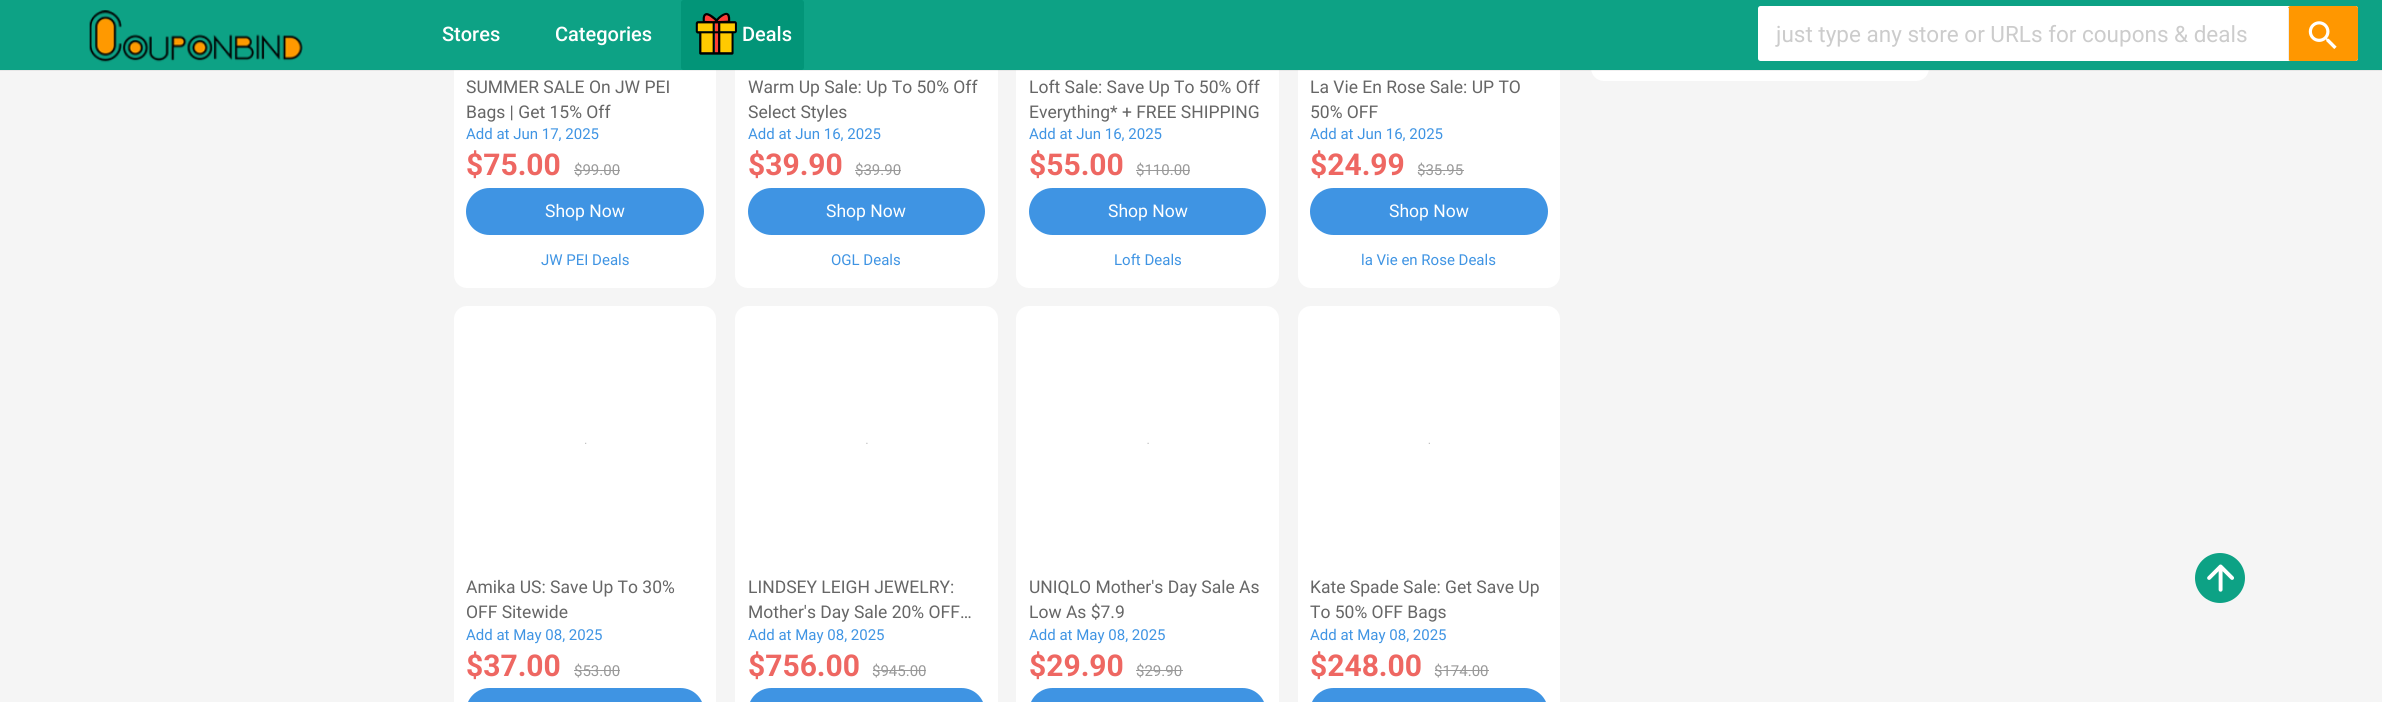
#include <cairo.h>
#include <math.h>
#include <stddef.h>

typedef struct { const char *family; double size; int italic, bold; unsigned color; } style_t;
static cairo_t *ctx;

static void ink(unsigned color) {
    cairo_set_source_rgb(ctx, (color >> 16) / 255.0, (color >> 8 & 255) / 255.0, (color & 255) / 255.0);
}

static void write(double x, double y, const char *s, const style_t *st) {
    cairo_select_font_face(ctx, st->family, st->italic ? CAIRO_FONT_SLANT_ITALIC : CAIRO_FONT_SLANT_NORMAL,
        st->bold ? CAIRO_FONT_WEIGHT_BOLD : CAIRO_FONT_WEIGHT_NORMAL);
    cairo_set_font_size(ctx, st->size);
    ink(st->color);
    cairo_move_to(ctx, x, y);
    cairo_show_text(ctx, s);
}

static void block(double x, double y, double w, double h, unsigned color) {
    ink(color);
    cairo_rectangle(ctx, x, y, w, h);
    cairo_fill(ctx);
}

static void round_path(double x, double y, double w, double h, double r) {
    cairo_new_sub_path(ctx);
    cairo_arc(ctx, x + w - r, y + h - r, r, 0, M_PI / 2);
    cairo_arc(ctx, x + r, y + h - r, r, M_PI / 2, M_PI);
    cairo_arc(ctx, x + r, y + r, r, M_PI, 1.5 * M_PI);
    cairo_arc(ctx, x + w - r, y + r, r, 1.5 * M_PI, 2 * M_PI);
    cairo_close_path(ctx);
}

static void paste(const char *path, double x, double y, double w, double h) {
    cairo_surface_t *image = cairo_image_surface_create_from_png(path);
    cairo_save(ctx);
    cairo_set_source_surface(ctx, image, x, y);
    cairo_rectangle(ctx, x, y, w, h);
    cairo_fill(ctx);
    cairo_restore(ctx);
    cairo_surface_destroy(image);
}

static const style_t s1 = {"Roboto Medium", 20, 0, 0, 0xffffff};
static const style_t s2 = {"Roboto", 22.5, 0, 0, 0xcccccc};
static const style_t s3 = {"Roboto", 17.5, 0, 0, 0x666666};
static const style_t s4 = {"Roboto", 15, 0, 0, 0x3f94e3};
static const style_t s5 = {"Roboto", 30, 0, 1, 0xee6762};
static const style_t s6 = {"Roboto", 15, 0, 0, 0x999999};
static const style_t s7 = {"Roboto", 17.5, 0, 0, 0xffffff};

int main(void) {
    cairo_surface_t *surface = cairo_image_surface_create(CAIRO_FORMAT_RGB24, 2382, 702);
    ctx = cairo_create(surface);
    cairo_font_options_t *options = cairo_font_options_create();
    cairo_font_options_set_hint_metrics(options, CAIRO_HINT_METRICS_OFF);
    cairo_font_options_set_hint_style(options, CAIRO_HINT_STYLE_NONE);
    cairo_set_font_options(ctx, options);
    cairo_set_miter_limit(ctx, 4);
    ink(0xf5f5f5);
    cairo_paint(ctx);
    ink(0xffffff);
    round_path(1591, -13, 338, 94, 13);
    cairo_fill(ctx);
    round_path(454, -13, 262, 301, 13);
    cairo_fill(ctx);
    round_path(735, -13, 263, 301, 13);
    cairo_fill(ctx);
    round_path(1016, -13, 263, 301, 13);
    cairo_fill(ctx);
    round_path(1298, -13, 262, 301, 13);
    cairo_fill(ctx);
    cairo_set_source_rgba(ctx, 0, 0, 0, 0.06);
    cairo_new_path(ctx);
    cairo_move_to(ctx, 0, 70);
    cairo_line_to(ctx, 0, 71);
    cairo_line_to(ctx, 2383, 71);
    cairo_line_to(ctx, 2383, 1);
    cairo_line_to(ctx, 2382, 1);
    cairo_line_to(ctx, 2382, 70);
    cairo_close_path(ctx);
    cairo_fill(ctx);
    block(0, 0, 2382, 70, 0x0da285);
    paste("pic1.png", 89, 10, 214, 53);
    write(442, 41, "Stores", &s1);
    write(555, 41, "Categories", &s1);
    ink(0x029578);
    round_path(681, 0, 123, 70, 2.5);
    cairo_fill(ctx);
    paste("pic2.png", 695, 12, 42, 43);
    write(742, 41, "Deals", &s1);
    round_path(1758, 6, 600, 55, 2.5);
    cairo_fill(ctx);
    write(1776, 42, "just type any store or URLs for coupons & deals", &s2);
    ink(0xff9700);
    round_path(2288, 6, 70, 55, 2.5);
    cairo_fill(ctx);
    block(2288, 8, 1, 52, 0xededed);
    paste("pic3.png", 2308, 21, 29, 28);
    write(466, 93, "SUMMER SALE On JW PEI", &s3);
    write(466, 118, "Bags | Get 15% Off", &s3);
    write(466, 139, "Add at Jun 17, 2025", &s4);
    write(466, 175, "$75.00", &s5);
    write(574, 175, "$99.00", &s6);
    block(574, 170, 46, 1, 0x999999);
    ink(0x3f94e3);
    round_path(466, 188, 238, 47, 23.5);
    cairo_fill(ctx);
    write(545, 217, "Shop Now", &s7);
    write(541, 265, "JW PEI Deals", &s4);
    write(748, 93, "Warm Up Sale: Up To 50% Off", &s3);
    write(748, 118, "Select Styles", &s3);
    write(748, 139, "Add at Jun 16, 2025", &s4);
    write(748, 175, "$39.90", &s5);
    write(855, 175, "$39.90", &s6);
    block(855, 170, 46, 1, 0x999999);
    ink(0x3f94e3);
    round_path(748, 188, 237, 47, 23.5);
    cairo_fill(ctx);
    write(826, 217, "Shop Now", &s7);
    write(831, 265, "OGL Deals", &s4);
    write(1029, 93, "Loft Sale: Save Up To 50% Off", &s3);
    write(1029, 118, "Everything* + FREE SHIPPING", &s3);
    write(1029, 139, "Add at Jun 16, 2025", &s4);
    write(1029, 175, "$55.00", &s5);
    write(1136, 175, "$110.00", &s6);
    block(1136, 170, 54, 1, 0x999999);
    ink(0x3f94e3);
    round_path(1029, 188, 237, 47, 23.5);
    cairo_fill(ctx);
    write(1108, 217, "Shop Now", &s7);
    write(1114, 265, "Loft Deals", &s4);
    write(1310, 93, "La Vie En Rose Sale: UP TO", &s3);
    write(1310, 118, "50% OFF", &s3);
    write(1310, 139, "Add at Jun 16, 2025", &s4);
    write(1310, 175, "$24.99", &s5);
    write(1417, 175, "$35.95", &s6);
    block(1418, 170, 46, 1, 0x999999);
    ink(0x3f94e3);
    round_path(1310, 188, 238, 47, 23.5);
    cairo_fill(ctx);
    write(1389, 217, "Shop Now", &s7);
    write(1361, 265, "la Vie en Rose Deals", &s4);
    ink(0xffffff);
    round_path(454, 306, 262, 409, 13);
    cairo_fill(ctx);
    paste("pic4.png", 585, 442, 2, 2);
    write(466, 593, "Amika US: Save Up To 30%", &s3);
    write(466, 618, "OFF Sitewide", &s3);
    write(466, 640, "Add at May 08, 2025", &s4);
    write(466, 676, "$37.00", &s5);
    write(574, 676, "$53.00", &s6);
    block(574, 670, 46, 1, 0x999999);
    ink(0x3f94e3);
    round_path(466, 688, 238, 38, 23.5);
    cairo_fill(ctx);
    ink(0xffffff);
    round_path(735, 306, 263, 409, 13);
    cairo_fill(ctx);
    paste("pic5.png", 866, 442, 2, 2);
    write(748, 593, "LINDSEY LEIGH JEWELRY:", &s3);
    write(748, 618, "Mother's Day Sale 20% OFF…", &s3);
    write(748, 640, "Add at May 08, 2025", &s4);
    write(748, 676, "$756.00", &s5);
    write(872, 676, "$945.00", &s6);
    block(873, 670, 53, 1, 0x999999);
    ink(0x3f94e3);
    round_path(748, 688, 237, 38, 23.5);
    cairo_fill(ctx);
    ink(0xffffff);
    round_path(1016, 306, 263, 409, 13);
    cairo_fill(ctx);
    paste("pic6.png", 1147, 442, 2, 2);
    write(1029, 593, "UNIQLO Mother's Day Sale As", &s3);
    write(1029, 618, "Low As $7.9", &s3);
    write(1029, 640, "Add at May 08, 2025", &s4);
    write(1029, 676, "$29.90", &s5);
    write(1136, 676, "$29.90", &s6);
    block(1136, 670, 47, 1, 0x999999);
    ink(0x3f94e3);
    round_path(1029, 688, 237, 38, 23.5);
    cairo_fill(ctx);
    ink(0xffffff);
    round_path(1298, 306, 262, 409, 13);
    cairo_fill(ctx);
    paste("pic7.png", 1428, 442, 2, 2);
    write(1310, 593, "Kate Spade Sale: Get Save Up", &s3);
    write(1310, 618, "To 50% OFF Bags", &s3);
    write(1310, 640, "Add at May 08, 2025", &s4);
    write(1310, 676, "$248.00", &s5);
    write(1434, 676, "$174.00", &s6);
    block(1435, 670, 54, 1, 0x999999);
    ink(0x3f94e3);
    round_path(1310, 688, 238, 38, 23.5);
    cairo_fill(ctx);
    ink(0x0da285);
    cairo_arc(ctx, 2220, 578, 25, 0, 2 * M_PI);
    cairo_fill(ctx);
    paste("pic8.png", 2207, 564, 27, 28);
    cairo_surface_write_to_png(surface, "screenshot.png");
    cairo_font_options_destroy(options);
    cairo_destroy(ctx);
    cairo_surface_destroy(surface);
    return 0;
}
